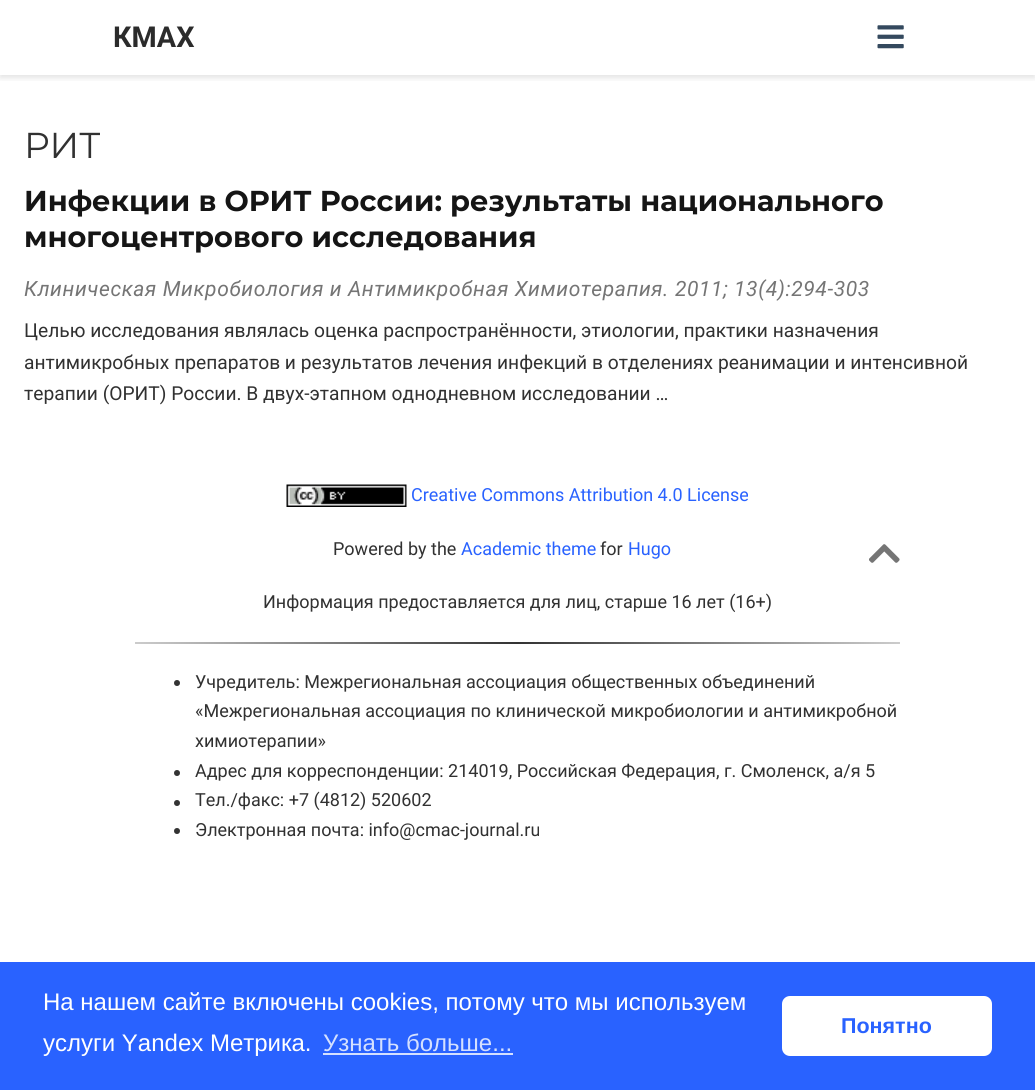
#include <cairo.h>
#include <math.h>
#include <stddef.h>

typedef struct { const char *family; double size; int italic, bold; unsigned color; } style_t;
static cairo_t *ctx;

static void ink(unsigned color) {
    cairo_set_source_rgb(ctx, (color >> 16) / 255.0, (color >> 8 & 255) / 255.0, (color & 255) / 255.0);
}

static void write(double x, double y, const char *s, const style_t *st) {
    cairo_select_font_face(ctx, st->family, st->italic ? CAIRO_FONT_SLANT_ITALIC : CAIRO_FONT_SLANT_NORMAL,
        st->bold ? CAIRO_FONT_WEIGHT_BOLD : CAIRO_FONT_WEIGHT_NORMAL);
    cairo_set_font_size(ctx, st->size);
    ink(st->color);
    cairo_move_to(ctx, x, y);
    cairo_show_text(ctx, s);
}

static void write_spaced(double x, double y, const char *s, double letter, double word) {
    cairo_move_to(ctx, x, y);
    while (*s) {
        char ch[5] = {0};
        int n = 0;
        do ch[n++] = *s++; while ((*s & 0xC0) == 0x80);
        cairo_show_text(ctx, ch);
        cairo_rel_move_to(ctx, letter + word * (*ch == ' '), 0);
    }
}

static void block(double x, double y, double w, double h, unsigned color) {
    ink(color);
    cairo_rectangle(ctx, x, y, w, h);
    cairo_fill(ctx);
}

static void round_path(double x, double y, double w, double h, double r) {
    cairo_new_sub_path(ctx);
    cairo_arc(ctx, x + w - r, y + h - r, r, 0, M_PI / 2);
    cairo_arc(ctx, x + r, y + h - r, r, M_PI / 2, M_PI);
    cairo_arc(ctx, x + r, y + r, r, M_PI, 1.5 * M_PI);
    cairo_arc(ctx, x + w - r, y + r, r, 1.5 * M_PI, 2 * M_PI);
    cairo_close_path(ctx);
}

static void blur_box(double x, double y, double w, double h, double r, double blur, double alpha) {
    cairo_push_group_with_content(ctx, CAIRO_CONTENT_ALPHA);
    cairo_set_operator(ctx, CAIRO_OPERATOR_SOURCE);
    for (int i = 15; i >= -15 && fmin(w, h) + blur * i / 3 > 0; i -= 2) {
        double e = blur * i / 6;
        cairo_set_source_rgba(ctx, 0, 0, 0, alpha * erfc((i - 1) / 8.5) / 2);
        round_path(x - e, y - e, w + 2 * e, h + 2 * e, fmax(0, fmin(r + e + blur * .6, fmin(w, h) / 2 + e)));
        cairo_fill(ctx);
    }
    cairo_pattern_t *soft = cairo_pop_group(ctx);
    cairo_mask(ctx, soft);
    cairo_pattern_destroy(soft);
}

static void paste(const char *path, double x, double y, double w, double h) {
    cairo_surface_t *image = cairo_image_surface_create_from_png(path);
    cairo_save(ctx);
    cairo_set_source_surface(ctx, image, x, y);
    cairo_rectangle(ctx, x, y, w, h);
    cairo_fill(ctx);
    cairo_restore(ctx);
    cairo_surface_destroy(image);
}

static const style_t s1 = {"Roboto", 28.8, 0, 1, 0x2b2b2b};
static const style_t s2 = {"Montserrat", 36, 0, 0, 0x313131};
static const style_t s3 = {"Montserrat", 28.8, 0, 1, 0x151515};
static const style_t s4 = {"Roboto", 19.2, 0, 0, 0x313131};
static const style_t s5 = {"Roboto", 18, 0, 0, 0x2962ff};
static const style_t s6 = {"Roboto", 18, 0, 0, 0x313131};
static const style_t s7 = {"Liberation Sans", 24, 0, 0, 0xffffff};
static const style_t s8 = {"Liberation Sans", 24, 0, 0, 0xd4e0ff};
static const style_t s9 = {"Liberation Sans", 21.5, 0, 1, 0x2962ff};

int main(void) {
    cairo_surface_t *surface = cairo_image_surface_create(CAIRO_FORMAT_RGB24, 1035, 1090);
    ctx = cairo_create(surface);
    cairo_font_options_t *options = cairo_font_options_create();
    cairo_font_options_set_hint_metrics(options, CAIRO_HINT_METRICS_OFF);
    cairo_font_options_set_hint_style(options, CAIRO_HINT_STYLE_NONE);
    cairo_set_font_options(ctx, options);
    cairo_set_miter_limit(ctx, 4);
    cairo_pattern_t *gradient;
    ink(0xffffff);
    cairo_paint(ctx);
    cairo_save(ctx);
    cairo_rectangle(ctx, 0, 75, 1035, 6);
    cairo_clip(ctx);
    ink(0x000000);
    blur_box(0, 3, 1035, 75, 0, 3, 0.11);
    cairo_restore(ctx);
    write(113, 47, "КМАХ", &s1);
    paste("pic1.png", 877, 25, 27, 24);
    write(24, 158, "РИТ", &s2);
    write(24, 211, "Инфекции в ОРИТ России: результаты национального", &s3);
    write(24, 247, "многоцентрового исследования", &s3);
    cairo_select_font_face(ctx, "Roboto", CAIRO_FONT_SLANT_ITALIC, CAIRO_FONT_WEIGHT_NORMAL);
    cairo_set_font_size(ctx, 21);
    ink(0x757575);
    write_spaced(24, 296, "Клиническая Микробиология и Антимикробная Химиотерапия. 2011; 13(4):294-303", 0.63, 0);
    write(24, 337, "Целью исследования являлась оценка распространённости, этиологии, практики назначения", &s4);
    write(24, 369, "антимикробных препаратов и результатов лечения инфекций в отделениях реанимации и интенсивной", &s4);
    write(24, 400, "терапии (ОРИТ) России. В двух-этапном однодневном исследовании …", &s4);
    paste("pic2.png", 286, 484, 121, 23);
    write(411, 501, "Creative Commons Attribution 4.0 License", &s5);
    write(333, 555, "Powered by the", &s6);
    write(461, 555, "Academic theme", &s5);
    write(600, 555, "for", &s6);
    write(628, 555, "Hugo", &s5);
    paste("pic3.png", 869, 544, 31, 19);
    write(263, 608, "Информация предоставляется для лиц, старше 16 лет (16+)", &s6);
    gradient = cairo_pattern_create_linear(135, 643, 900, 643);
    cairo_pattern_add_color_stop_rgba(gradient, 0, 0.8, 0.8, 0.8, 1);
    cairo_pattern_add_color_stop_rgba(gradient, 0.5, 0.2, 0.2, 0.2, 1);
    cairo_pattern_add_color_stop_rgba(gradient, 1, 0.8, 0.8, 0.8, 1);
    cairo_set_source(ctx, gradient);
    cairo_pattern_destroy(gradient);
    cairo_rectangle(ctx, 135, 642, 765, 2);
    cairo_fill(ctx);
    ink(0x333333);
    cairo_arc(ctx, 177, 683, 3, 0, 2 * M_PI);
    cairo_fill(ctx);
    write(195, 688, "Учредитель: Межрегиональная ассоциация общественных объединений", &s6);
    write(195, 717, "«Межрегиональная ассоциация по клинической микробиологии и антимикробной", &s6);
    write(195, 747, "химиотерапии»", &s6);
    ink(0x333333);
    cairo_new_path(ctx);
    cairo_arc(ctx, 177, 773, 3, 0, 2 * M_PI);
    cairo_fill(ctx);
    write(195, 777, "Адрес для корреспонденции: 214019, Российская Федерация, г. Смоленск, а/я 5", &s6);
    ink(0x333333);
    cairo_new_path(ctx);
    cairo_arc(ctx, 177, 803, 3, 0, 2 * M_PI);
    cairo_fill(ctx);
    write(195, 806, "Тел./факс: +7 (4812) 520602", &s6);
    ink(0x333333);
    cairo_new_path(ctx);
    cairo_arc(ctx, 177, 831, 3, 0, 2 * M_PI);
    cairo_fill(ctx);
    write(195, 836, "Электронная почта: info@cmac-journal.ru", &s6);
    block(0, 962, 1035, 128, 0x2962ff);
    write(43, 1010, "На нашем сайте включены cookies, потому что мы используем", &s7);
    write(43, 1051, "услуги Yandex Метрика.", &s7);
    write(323, 1051, "Узнать больше...", &s8);
    block(323, 1053, 190, 2, 0xd4e0ff);
    ink(0xffffff);
    round_path(782, 996, 210, 60, 8);
    cairo_fill(ctx);
    write(841, 1033, "Понятно", &s9);
    cairo_surface_write_to_png(surface, "screenshot.png");
    cairo_font_options_destroy(options);
    cairo_destroy(ctx);
    cairo_surface_destroy(surface);
    return 0;
}
